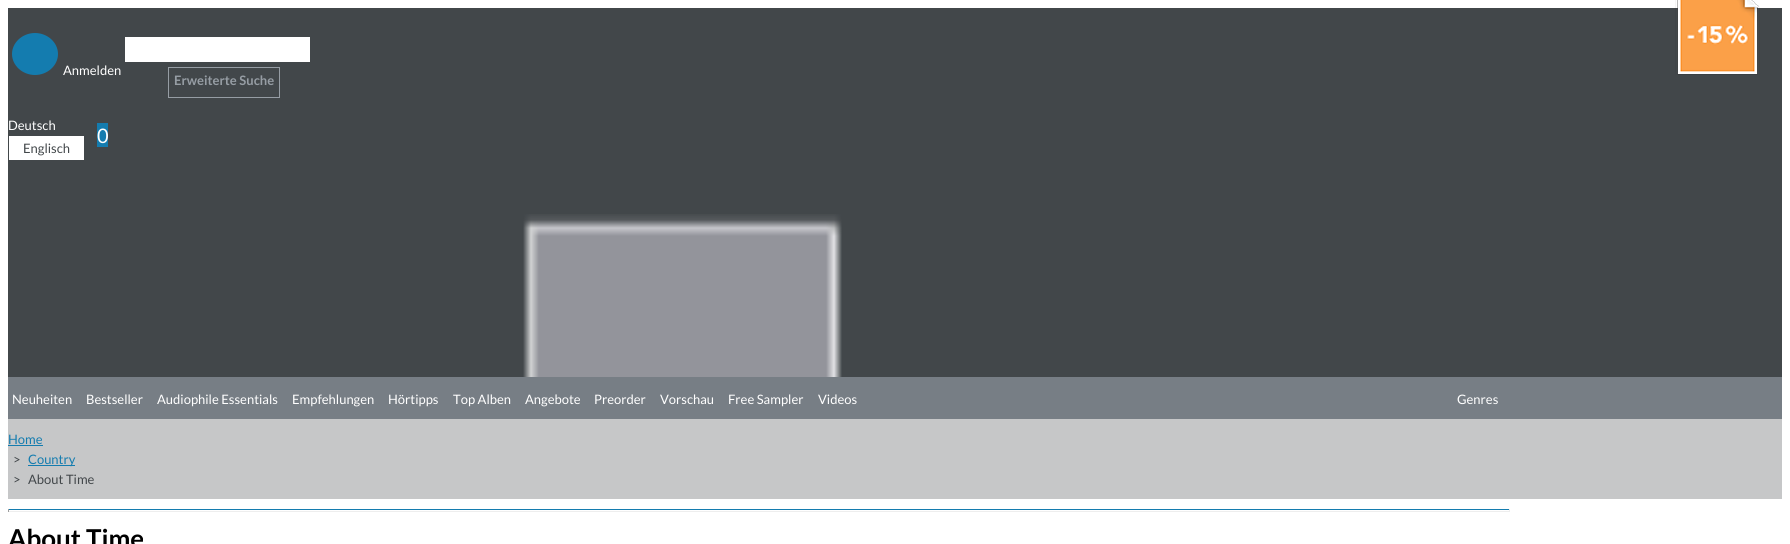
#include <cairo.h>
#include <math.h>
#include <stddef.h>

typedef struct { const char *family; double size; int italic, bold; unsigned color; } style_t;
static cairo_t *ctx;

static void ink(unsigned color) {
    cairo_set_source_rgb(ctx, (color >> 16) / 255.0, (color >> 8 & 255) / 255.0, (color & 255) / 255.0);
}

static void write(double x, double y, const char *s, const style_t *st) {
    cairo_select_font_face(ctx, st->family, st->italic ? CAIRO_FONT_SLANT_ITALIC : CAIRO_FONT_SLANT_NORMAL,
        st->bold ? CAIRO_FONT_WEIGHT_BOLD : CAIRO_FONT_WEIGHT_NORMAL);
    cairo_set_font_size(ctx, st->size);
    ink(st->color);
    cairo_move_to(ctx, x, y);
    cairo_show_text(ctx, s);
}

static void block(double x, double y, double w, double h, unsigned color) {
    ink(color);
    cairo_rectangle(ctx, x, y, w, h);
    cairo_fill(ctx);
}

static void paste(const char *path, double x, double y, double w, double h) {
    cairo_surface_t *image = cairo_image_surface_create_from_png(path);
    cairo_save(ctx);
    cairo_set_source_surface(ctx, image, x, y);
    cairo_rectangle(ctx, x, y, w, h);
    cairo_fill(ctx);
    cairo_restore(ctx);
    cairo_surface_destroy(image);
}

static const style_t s1 = {"Lato", 13, 0, 0, 0xffffff};
static const style_t s2 = {"Lato", 13, 0, 1, 0x969da4};
static const style_t s3 = {"Lato", 13, 0, 0, 0x42474a};
static const style_t s4 = {"Lato", 20, 0, 0, 0xffffff};
static const style_t s5 = {"Lato", 13, 0, 0, 0x147caf};
static const style_t s6 = {"Lato", 26, 0, 1, 0x000000};

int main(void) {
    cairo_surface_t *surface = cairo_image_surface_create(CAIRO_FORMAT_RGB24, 1790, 544);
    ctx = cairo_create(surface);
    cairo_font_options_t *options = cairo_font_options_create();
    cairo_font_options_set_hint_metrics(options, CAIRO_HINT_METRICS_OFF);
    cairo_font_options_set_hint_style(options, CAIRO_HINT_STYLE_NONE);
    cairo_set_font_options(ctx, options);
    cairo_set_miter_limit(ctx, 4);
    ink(0xffffff);
    cairo_paint(ctx);
    block(8, 8, 1774, 369, 0x42474a);
    ink(0x147caf);
    cairo_new_path(ctx);
    cairo_move_to(ctx, 35, 33);
    cairo_curve_to(ctx, 47.5, 33, 58, 42.5, 58, 54);
    cairo_curve_to(ctx, 58, 65.5, 47.5, 75, 35, 75);
    cairo_curve_to(ctx, 22.5, 75, 12, 65.5, 12, 54);
    cairo_curve_to(ctx, 12, 42.5, 22.5, 33, 35, 33);
    cairo_close_path(ctx);
    cairo_fill(ctx);
    write(63, 75, "Anmelden", &s1);
    block(125, 37, 185, 25, 0xffffff);
    cairo_rectangle(ctx, 168.5, 67.5, 111, 30);
    ink(0x969da4);
    cairo_set_line_width(ctx, 1);
    cairo_stroke(ctx);
    write(174, 85, "Erweiterte Suche", &s2);
    write(8, 130, "Deutsch", &s1);
    block(9, 136, 75, 24, 0xffffff);
    write(23, 153, "Englisch", &s3);
    block(97, 123, 11, 24, 0x147caf);
    write(97, 143, "0", &s4);
    paste("pic1.png", 523, 214, 319, 163);
    block(8, 377, 1774, 42, 0x777e85);
    write(12, 404, "Neuheiten", &s1);
    write(86, 404, "Bestseller", &s1);
    write(157, 404, "Audiophile Essentials", &s1);
    write(292, 404, "Empfehlungen", &s1);
    write(388, 404, "Hörtipps", &s1);
    write(453, 404, "Top Alben", &s1);
    write(525, 404, "Angebote", &s1);
    write(594, 404, "Preorder", &s1);
    write(660, 404, "Vorschau", &s1);
    write(728, 404, "Free Sampler", &s1);
    write(818, 404, "Videos", &s1);
    write(1457, 404, "Genres", &s1);
    block(8, 419, 1774, 80, 0xc6c7c8);
    write(8, 444, "Home", &s5);
    block(8, 445, 35, 1, 0x147caf);
    write(13, 464, ">", &s3);
    block(28, 465, 47, 1, 0x147caf);
    write(28, 464, "Country", &s5);
    write(13, 484, ">", &s3);
    write(28, 484, "About Time", &s3);
    paste("pic2.png", 1675, 0, 85, 75);
    block(8, 509, 1502, 1, 0x147caf);
    block(1509, 509, 1, 3, 0xeeeeee);
    block(8, 511, 1502, 1, 0xeeeeee);
    block(8, 509, 1, 3, 0x9f9f9f);
    write(8, 548, "About Time", &s6);
    cairo_surface_write_to_png(surface, "screenshot.png");
    cairo_font_options_destroy(options);
    cairo_destroy(ctx);
    cairo_surface_destroy(surface);
    return 0;
}
